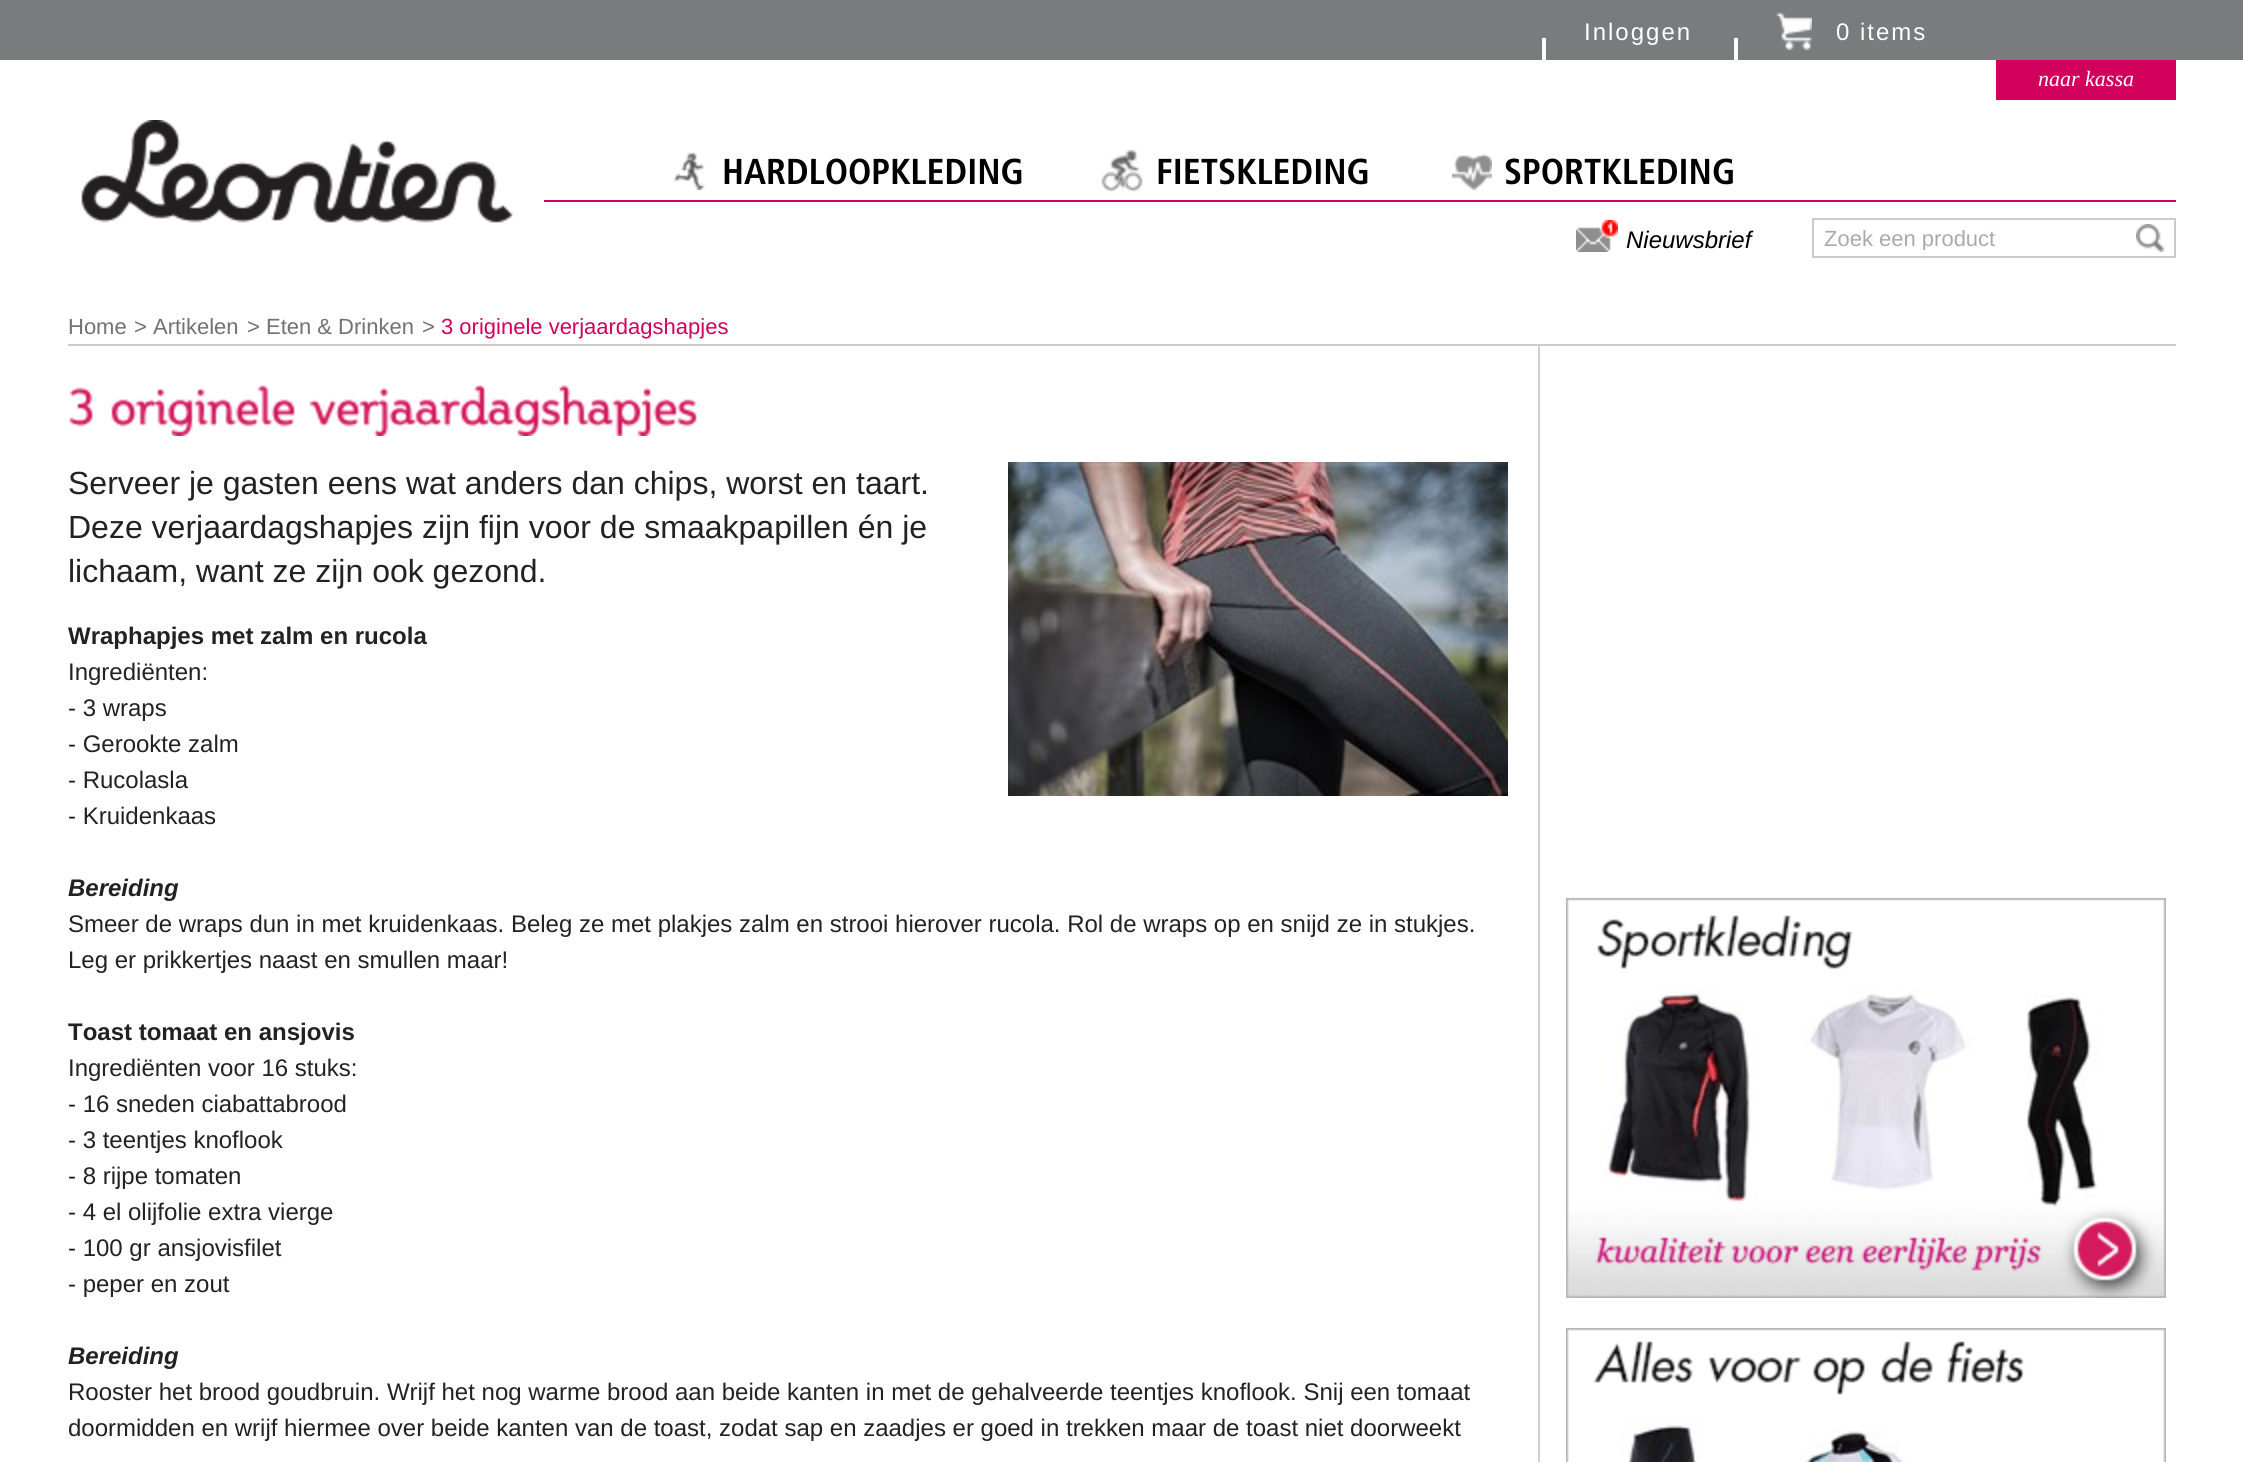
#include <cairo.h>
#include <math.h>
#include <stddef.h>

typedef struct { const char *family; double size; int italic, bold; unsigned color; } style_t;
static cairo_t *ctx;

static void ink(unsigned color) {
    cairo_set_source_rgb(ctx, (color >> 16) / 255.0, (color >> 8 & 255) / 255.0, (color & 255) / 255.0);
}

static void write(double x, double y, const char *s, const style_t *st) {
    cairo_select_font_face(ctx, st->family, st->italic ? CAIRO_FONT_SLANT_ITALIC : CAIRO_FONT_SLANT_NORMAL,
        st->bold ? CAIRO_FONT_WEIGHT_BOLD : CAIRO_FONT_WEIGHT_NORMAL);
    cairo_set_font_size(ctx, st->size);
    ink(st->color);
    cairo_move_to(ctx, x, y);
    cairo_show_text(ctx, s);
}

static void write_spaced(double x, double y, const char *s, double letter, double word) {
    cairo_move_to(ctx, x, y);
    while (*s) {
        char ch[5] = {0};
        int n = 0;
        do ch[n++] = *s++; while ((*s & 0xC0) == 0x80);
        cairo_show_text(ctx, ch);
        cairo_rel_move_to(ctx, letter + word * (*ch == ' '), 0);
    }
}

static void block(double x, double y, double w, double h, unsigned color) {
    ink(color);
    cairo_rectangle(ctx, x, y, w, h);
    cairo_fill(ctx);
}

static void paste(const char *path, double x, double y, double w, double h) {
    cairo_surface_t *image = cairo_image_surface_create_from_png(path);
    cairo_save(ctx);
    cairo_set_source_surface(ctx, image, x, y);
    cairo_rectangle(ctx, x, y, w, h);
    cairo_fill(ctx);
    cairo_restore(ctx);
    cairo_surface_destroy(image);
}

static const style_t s1 = {"Liberation Serif", 22, 1, 0, 0xffffff};
static const style_t s2 = {"Frutiger", 36, 0, 1, 0x000000};
static const style_t s3 = {"Liberation Sans", 24, 1, 0, 0x000000};
static const style_t s4 = {"Liberation Sans", 22, 0, 0, 0xaaaaaa};
static const style_t s5 = {"Liberation Sans", 22, 0, 0, 0x727272};
static const style_t s6 = {"Liberation Sans", 22, 0, 0, 0xd1005c};
static const style_t s7 = {"Liberation Sans", 32, 0, 0, 0x222222};
static const style_t s8 = {"Liberation Sans", 24, 0, 1, 0x222222};
static const style_t s9 = {"Liberation Sans", 24, 0, 0, 0x222222};
static const style_t s10 = {"Liberation Sans", 24, 1, 1, 0x222222};

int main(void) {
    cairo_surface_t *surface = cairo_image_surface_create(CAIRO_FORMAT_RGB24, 2243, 1462);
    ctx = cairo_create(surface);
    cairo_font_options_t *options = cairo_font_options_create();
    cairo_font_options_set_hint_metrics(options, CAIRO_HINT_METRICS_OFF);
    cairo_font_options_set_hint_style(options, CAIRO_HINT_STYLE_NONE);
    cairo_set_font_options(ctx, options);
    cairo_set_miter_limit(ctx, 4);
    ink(0xffffff);
    cairo_paint(ctx);
    block(0, 0, 2243, 60, 0x7a7b7d);
    cairo_select_font_face(ctx, "Liberation Sans", CAIRO_FONT_SLANT_NORMAL, CAIRO_FONT_WEIGHT_NORMAL);
    cairo_set_font_size(ctx, 24);
    ink(0xffffff);
    write_spaced(1584, 40, "Inloggen", 2, 0);
    block(1542, 38, 4, 24, 0xffffff);
    paste("pic1.png", 1776, 12, 36, 38);
    write_spaced(1836, 40, "0 items", 2, 0);
    block(1734, 38, 4, 24, 0xffffff);
    block(1996, 60, 180, 40, 0xd1005c);
    write(2038, 86, "naar kassa", &s1);
    block(544, 200, 1632, 2, 0xd1005c);
    paste("pic2.png", 673, 152, 32, 38);
    write(722, 184, "HARDLOOPKLEDING", &s2);
    paste("pic3.png", 1101, 150, 42, 42);
    write(1156, 184, "FIETSKLEDING", &s2);
    paste("pic4.png", 1452, 153, 40, 37);
    write(1504, 184, "SPORTKLEDING", &s2);
    paste("pic5.png", 1576, 220, 42, 32);
    write(1626, 248, "Nieuwsbrief", &s3);
    cairo_rectangle(ctx, 1813, 219, 362, 38);
    ink(0xcccccc);
    cairo_stroke(ctx);
    cairo_save(ctx);
    cairo_rectangle(ctx, 1824, 226, 300, 24);
    cairo_clip(ctx);
    write(1824, 246, "Zoek een product", &s4);
    cairo_restore(ctx);
    paste("pic6.png", 2136, 224, 29, 28);
    paste("pic7.png", 81, 120, 432, 103);
    write(68, 334, "Home", &s5);
    write(134, 334, "> Artikelen", &s5);
    write(247, 334, "> Eten & Drinken", &s5);
    write(422, 334, ">", &s5);
    write(441, 334, "3 originele verjaardagshapjes", &s6);
    block(68, 344, 2108, 2, 0xcccccc);
    block(1538, 346, 2, 1116, 0xcfcfcf);
    paste("pic8.png", 69, 387, 25, 40);
    paste("pic9.png", 111, 385, 185, 51);
    paste("pic10.png", 309, 385, 388, 51);
    write(68, 494, "Serveer je gasten eens wat anders dan chips, worst en taart.", &s7);
    write(68, 538, "Deze verjaardagshapjes zijn fijn voor de smaakpapillen én je", &s7);
    write(68, 582, "lichaam, want ze zijn ook gezond.", &s7);
    paste("pic11.png", 1008, 462, 500, 334);
    write(68, 644, "Wraphapjes met zalm en rucola", &s8);
    write(68, 680, "Ingrediënten:", &s9);
    write(68, 716, "- 3 wraps", &s9);
    write(68, 752, "- Gerookte zalm", &s9);
    write(68, 788, "- Rucolasla", &s9);
    write(68, 824, "- Kruidenkaas", &s9);
    write(68, 896, "Bereiding", &s10);
    write(68, 932, "Smeer de wraps dun in met kruidenkaas. Beleg ze met plakjes zalm en strooi hierover rucola. Rol de wraps op en snijd ze in stukjes.", &s9);
    write(68, 968, "Leg er prikkertjes naast en smullen maar!", &s9);
    write(68, 1040, "Toast tomaat en ansjovis", &s8);
    write(68, 1076, "Ingrediënten voor 16 stuks:", &s9);
    write(68, 1112, "- 16 sneden ciabattabrood", &s9);
    write(68, 1148, "- 3 teentjes knoflook", &s9);
    write(68, 1184, "- 8 rijpe tomaten", &s9);
    write(68, 1220, "- 4 el olijfolie extra vierge", &s9);
    write(68, 1256, "- 100 gr ansjovisfilet", &s9);
    write(68, 1292, "- peper en zout", &s9);
    write(68, 1364, "Bereiding", &s10);
    write(68, 1400, "Rooster het brood goudbruin. Wrijf het nog warme brood aan beide kanten in met de gehalveerde teentjes knoflook. Snij een tomaat", &s9);
    write(68, 1436, "doormidden en wrijf hiermee over beide kanten van de toast, zodat sap en zaadjes er goed in trekken maar de toast niet doorweekt", &s9);
    paste("pic12.png", 1566, 898, 600, 400);
    paste("pic13.png", 1566, 1328, 600, 134);
    cairo_surface_write_to_png(surface, "screenshot.png");
    cairo_font_options_destroy(options);
    cairo_destroy(ctx);
    cairo_surface_destroy(surface);
    return 0;
}
